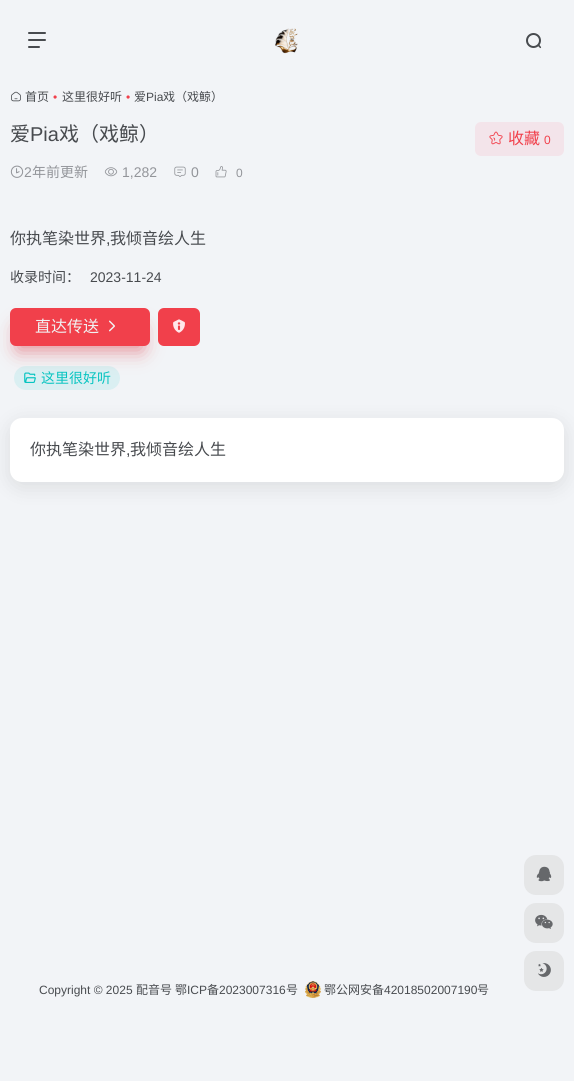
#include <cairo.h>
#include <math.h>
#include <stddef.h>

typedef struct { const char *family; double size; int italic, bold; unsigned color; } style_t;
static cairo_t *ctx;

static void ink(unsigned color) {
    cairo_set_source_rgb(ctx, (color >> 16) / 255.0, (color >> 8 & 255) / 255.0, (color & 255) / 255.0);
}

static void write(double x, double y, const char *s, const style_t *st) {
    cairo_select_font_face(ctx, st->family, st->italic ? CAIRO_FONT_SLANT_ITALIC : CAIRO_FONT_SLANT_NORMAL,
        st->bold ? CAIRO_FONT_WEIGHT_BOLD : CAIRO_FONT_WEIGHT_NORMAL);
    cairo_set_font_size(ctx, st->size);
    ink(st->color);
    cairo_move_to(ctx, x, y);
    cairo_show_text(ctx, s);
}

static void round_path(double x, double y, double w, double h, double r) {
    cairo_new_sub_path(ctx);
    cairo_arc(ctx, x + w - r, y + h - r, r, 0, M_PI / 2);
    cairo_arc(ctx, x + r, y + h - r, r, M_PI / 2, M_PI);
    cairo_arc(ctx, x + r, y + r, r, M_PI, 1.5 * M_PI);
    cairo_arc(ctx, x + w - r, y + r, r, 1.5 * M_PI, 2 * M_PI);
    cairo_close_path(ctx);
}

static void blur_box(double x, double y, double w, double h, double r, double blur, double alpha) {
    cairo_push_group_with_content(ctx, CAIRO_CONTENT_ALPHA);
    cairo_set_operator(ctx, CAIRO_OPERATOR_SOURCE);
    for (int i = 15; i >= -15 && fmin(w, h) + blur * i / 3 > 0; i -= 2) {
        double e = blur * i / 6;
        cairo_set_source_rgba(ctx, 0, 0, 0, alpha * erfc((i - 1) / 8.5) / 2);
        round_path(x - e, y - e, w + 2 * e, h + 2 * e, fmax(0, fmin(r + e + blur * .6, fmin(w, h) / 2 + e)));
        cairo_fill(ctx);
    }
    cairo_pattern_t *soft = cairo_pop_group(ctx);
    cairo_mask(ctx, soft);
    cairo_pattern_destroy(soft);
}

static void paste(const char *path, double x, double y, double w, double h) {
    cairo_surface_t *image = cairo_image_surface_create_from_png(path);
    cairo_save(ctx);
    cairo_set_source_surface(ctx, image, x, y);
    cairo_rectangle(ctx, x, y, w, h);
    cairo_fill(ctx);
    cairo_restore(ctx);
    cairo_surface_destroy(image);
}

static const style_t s1 = {"Noto Sans CJK SC", 12, 0, 0, 0x484b4f};
static const style_t s2 = {"Liberation Sans", 12, 0, 0, 0xf1404b};
static const style_t s3 = {"Liberation Sans", 12, 0, 0, 0x484b4f};
static const style_t s4 = {"Noto Sans CJK SC", 20, 0, 0, 0x484b4f};
static const style_t s5 = {"Liberation Sans", 20, 0, 0, 0x484b4f};
static const style_t s6 = {"Liberation Sans", 14, 0, 0, 0x93959a};
static const style_t s7 = {"Noto Sans CJK SC", 14, 0, 0, 0x93959a};
static const style_t s8 = {"Liberation Sans", 12, 0, 0, 0x93959a};
static const style_t s9 = {"Noto Sans CJK SC", 16, 0, 0, 0xf1404b};
static const style_t s10 = {"Noto Sans CJK SC", 16, 0, 0, 0x484b4f};
static const style_t s11 = {"Liberation Sans", 16, 0, 0, 0x484b4f};
static const style_t s12 = {"Noto Sans CJK SC", 14, 0, 0, 0x484b4f};
static const style_t s13 = {"Liberation Sans", 14, 0, 0, 0x484b4f};
static const style_t s14 = {"Noto Sans CJK SC", 16, 0, 0, 0xf1f2f3};
static const style_t s15 = {"Noto Sans CJK SC", 14, 0, 0, 0x08c4c1};

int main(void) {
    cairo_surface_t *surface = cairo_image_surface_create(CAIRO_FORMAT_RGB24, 574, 1081);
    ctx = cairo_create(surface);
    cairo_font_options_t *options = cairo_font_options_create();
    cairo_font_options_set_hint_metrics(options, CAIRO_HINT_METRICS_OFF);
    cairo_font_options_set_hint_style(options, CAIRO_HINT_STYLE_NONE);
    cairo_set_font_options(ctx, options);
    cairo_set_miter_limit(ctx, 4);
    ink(0xf2f4f7);
    cairo_paint(ctx);
    ink(0x484b4f);
    round_path(28, 32, 18, 2, 1);
    cairo_fill(ctx);
    round_path(28, 39, 18, 2, 1);
    cairo_fill(ctx);
    round_path(28, 46, 12, 2, 1);
    cairo_fill(ctx);
    paste("pic1.png", 275, 28, 23, 26);
    cairo_arc(ctx, 533.5, 40.5, 6.5, 0, 2 * M_PI);
    cairo_stroke(ctx);
    cairo_new_path(ctx);
    cairo_move_to(ctx, 539.5, 45);
    cairo_line_to(ctx, 541, 47);
    cairo_curve_to(ctx, 541.5, 47.5, 540.5, 48.5, 540, 48);
    cairo_line_to(ctx, 539, 47);
    cairo_curve_to(ctx, 537, 45.5, 538.5, 44, 539.5, 45);
    cairo_close_path(ctx);
    cairo_fill(ctx);
    paste("pic2.png", 11, 91, 10, 11);
    write(25, 101, "首页", &s1);
    write(53, 101, "•", &s2);
    write(62, 101, "这里很好听", &s1);
    write(126, 101, "•", &s2);
    write(134, 101, "爱", &s1);
    write(146, 101, "Pia", &s3);
    write(163, 101, "戏（戏鲸）", &s1);
    write(10, 141, "爱", &s4);
    write(30, 141, "Pia", &s5);
    write(59, 141, "戏（戏鲸）", &s4);
    paste("pic3.png", 10, 165, 14, 13);
    write(24, 177, "2", &s6);
    write(32, 177, "年前更新", &s7);
    paste("pic4.png", 104, 167, 14, 10);
    write(122, 177, "1,282", &s6);
    paste("pic5.png", 174, 166, 12, 11);
    write(191, 177, "0", &s6);
    paste("pic6.png", 215, 166, 12, 12);
    write(236, 177, "0", &s8);
    ink(0xf3e4ea);
    round_path(475, 122, 89, 34, 6);
    cairo_fill(ctx);
    paste("pic7.png", 489, 131, 14, 14);
    write(508, 144, "收藏", &s9);
    write(544, 144, "0", &s2);
    write(10, 244, "你执笔染世界", &s10);
    write(106, 244, ",", &s11);
    write(110, 244, "我倾音绘人生", &s10);
    write(10, 282, "收录时间：", &s12);
    write(90, 282, "2023-11-24", &s13);
    ink(0xdc414b);
    blur_box(18, 328, 124, 22, 0, 10, 0.6);
    ink(0xf1404b);
    round_path(10, 308, 140, 38, 6);
    cairo_fill(ctx);
    write(35, 332, "直达传送", &s14);
    paste("pic8.png", 109, 320, 6, 12);
    ink(0xf1404b);
    round_path(158, 308, 42, 38, 6);
    cairo_fill(ctx);
    paste("pic9.png", 173, 319, 12, 14);
    cairo_set_source_rgba(ctx, 0.031, 0.769, 0.757, 0.1);
    round_path(14, 366, 106, 24, 12);
    cairo_fill(ctx);
    paste("pic10.png", 24, 372, 12, 11);
    write(41, 383, "这里很好听", &s15);
    ink(0x000000);
    blur_box(10, 423, 554, 64, 12, 10, 0.1);
    ink(0xffffff);
    round_path(10, 418, 554, 64, 12);
    cairo_fill(ctx);
    write(30, 455, "你执笔染世界", &s10);
    write(126, 455, ",", &s11);
    write(130, 455, "我倾音绘人生", &s10);
    write(39, 994, "Copyright © 2025", &s3);
    write(136, 994, "配音号", &s1);
    write(175, 994, "鄂", &s1);
    write(187, 994, "ICP", &s3);
    write(207, 994, "备", &s1);
    write(219, 994, "2023007316", &s3);
    write(286, 994, "号", &s1);
    paste("pic11.png", 305, 981, 16, 17);
    write(324, 994, "鄂公网安备", &s1);
    write(384, 994, "42018502007190", &s3);
    write(477, 994, "号", &s1);
    ink(0xe5e6e7);
    round_path(524, 855, 40, 40, 12);
    cairo_fill(ctx);
    paste("pic12.png", 536, 866, 16, 16);
    round_path(524, 903, 40, 40, 12);
    cairo_fill(ctx);
    paste("pic13.png", 535, 914, 18, 15);
    round_path(524, 951, 40, 40, 12);
    cairo_fill(ctx);
    paste("pic14.png", 538, 963, 13, 14);
    cairo_surface_write_to_png(surface, "screenshot.png");
    cairo_font_options_destroy(options);
    cairo_destroy(ctx);
    cairo_surface_destroy(surface);
    return 0;
}
